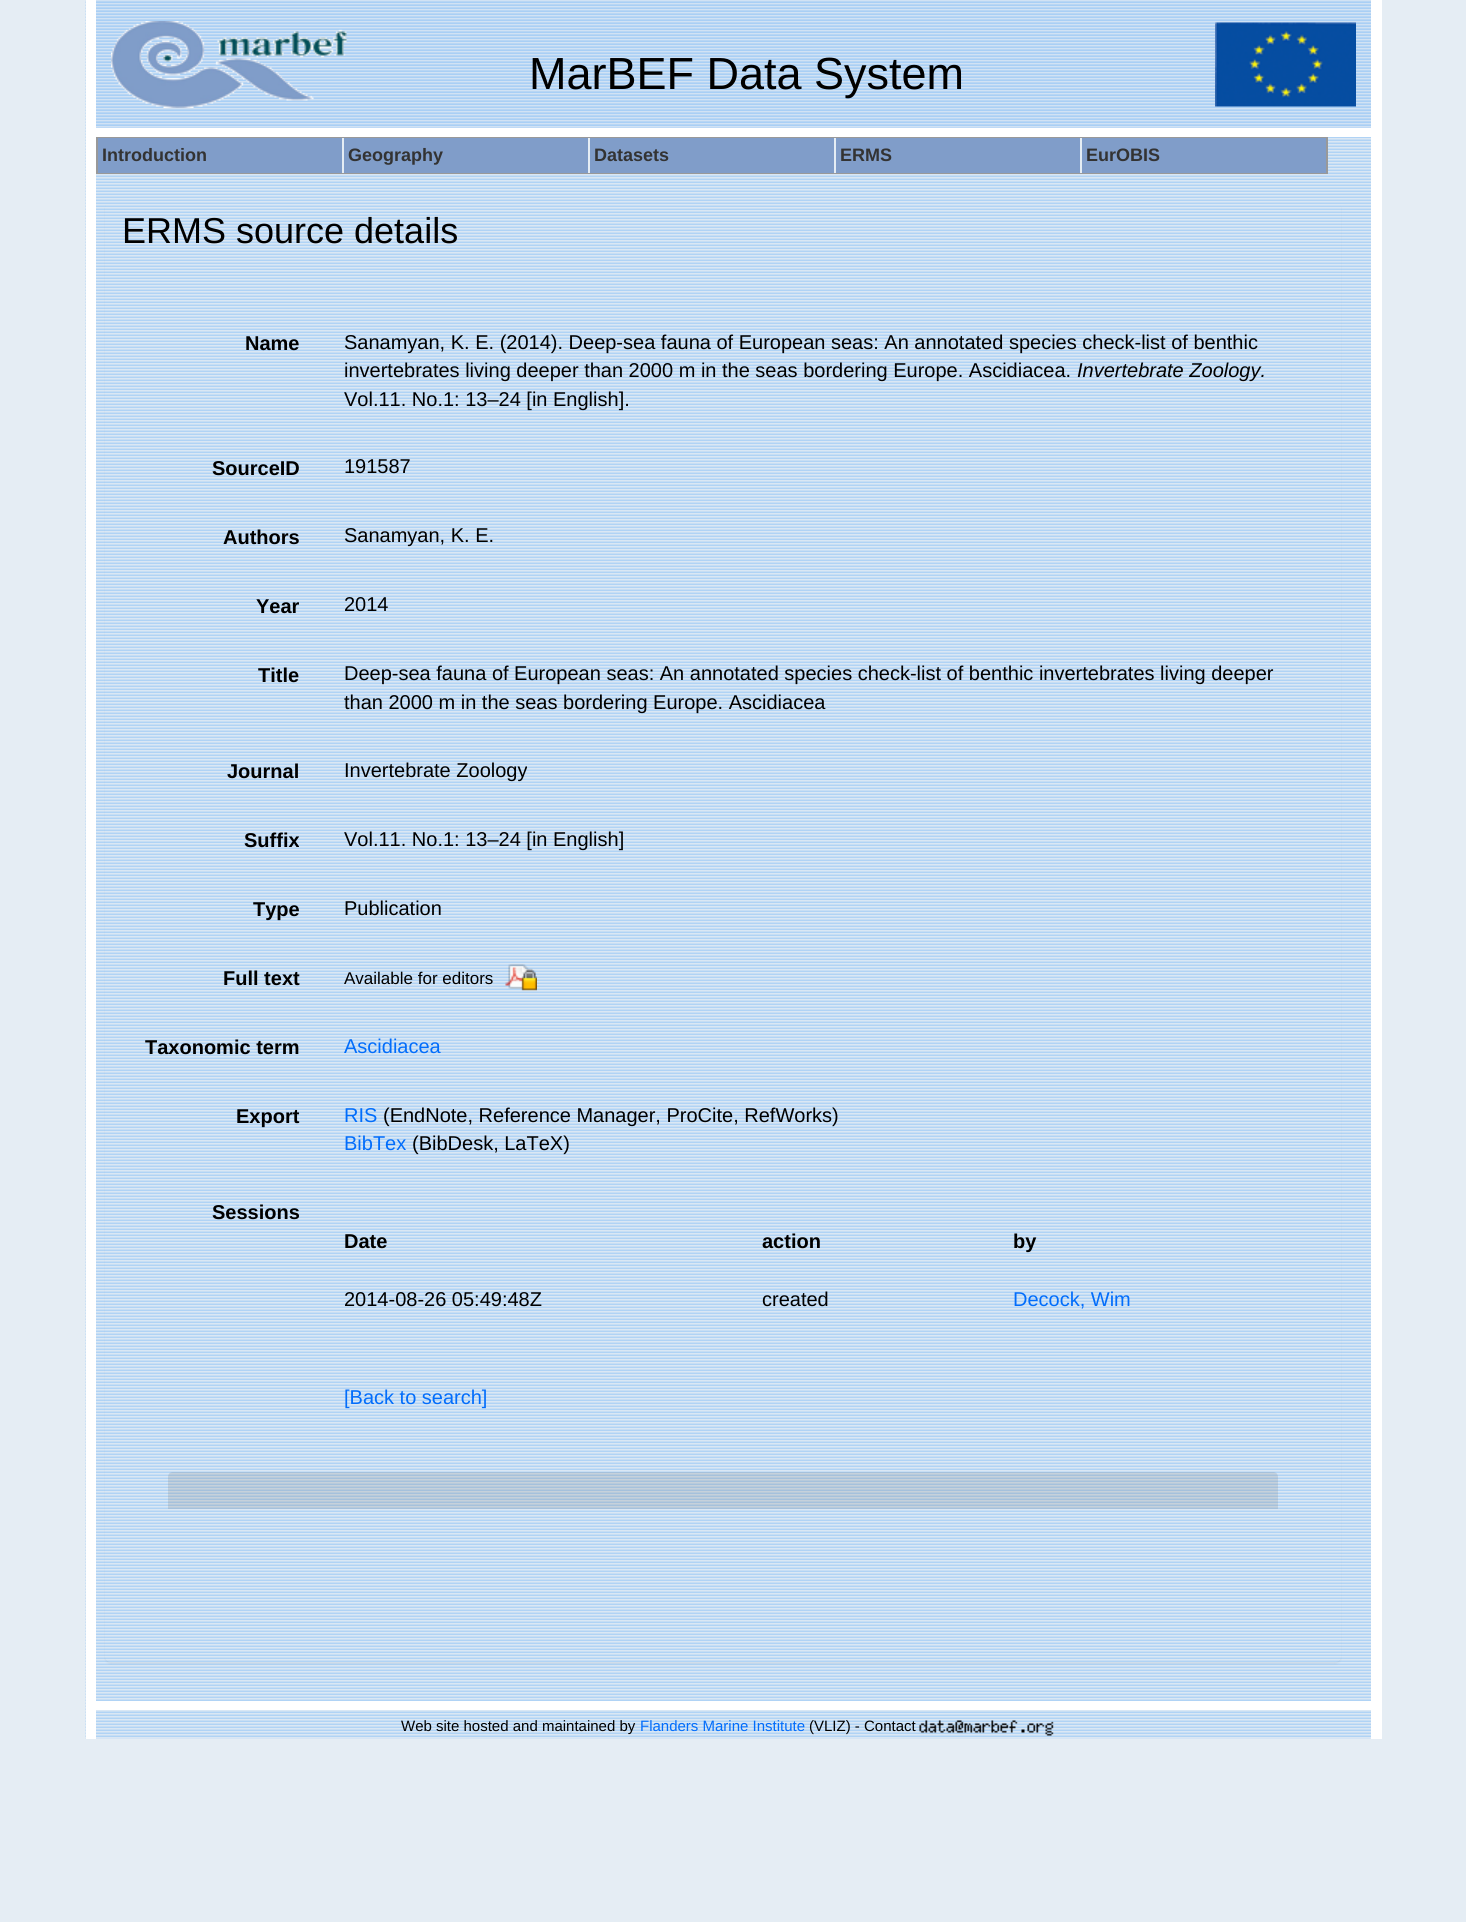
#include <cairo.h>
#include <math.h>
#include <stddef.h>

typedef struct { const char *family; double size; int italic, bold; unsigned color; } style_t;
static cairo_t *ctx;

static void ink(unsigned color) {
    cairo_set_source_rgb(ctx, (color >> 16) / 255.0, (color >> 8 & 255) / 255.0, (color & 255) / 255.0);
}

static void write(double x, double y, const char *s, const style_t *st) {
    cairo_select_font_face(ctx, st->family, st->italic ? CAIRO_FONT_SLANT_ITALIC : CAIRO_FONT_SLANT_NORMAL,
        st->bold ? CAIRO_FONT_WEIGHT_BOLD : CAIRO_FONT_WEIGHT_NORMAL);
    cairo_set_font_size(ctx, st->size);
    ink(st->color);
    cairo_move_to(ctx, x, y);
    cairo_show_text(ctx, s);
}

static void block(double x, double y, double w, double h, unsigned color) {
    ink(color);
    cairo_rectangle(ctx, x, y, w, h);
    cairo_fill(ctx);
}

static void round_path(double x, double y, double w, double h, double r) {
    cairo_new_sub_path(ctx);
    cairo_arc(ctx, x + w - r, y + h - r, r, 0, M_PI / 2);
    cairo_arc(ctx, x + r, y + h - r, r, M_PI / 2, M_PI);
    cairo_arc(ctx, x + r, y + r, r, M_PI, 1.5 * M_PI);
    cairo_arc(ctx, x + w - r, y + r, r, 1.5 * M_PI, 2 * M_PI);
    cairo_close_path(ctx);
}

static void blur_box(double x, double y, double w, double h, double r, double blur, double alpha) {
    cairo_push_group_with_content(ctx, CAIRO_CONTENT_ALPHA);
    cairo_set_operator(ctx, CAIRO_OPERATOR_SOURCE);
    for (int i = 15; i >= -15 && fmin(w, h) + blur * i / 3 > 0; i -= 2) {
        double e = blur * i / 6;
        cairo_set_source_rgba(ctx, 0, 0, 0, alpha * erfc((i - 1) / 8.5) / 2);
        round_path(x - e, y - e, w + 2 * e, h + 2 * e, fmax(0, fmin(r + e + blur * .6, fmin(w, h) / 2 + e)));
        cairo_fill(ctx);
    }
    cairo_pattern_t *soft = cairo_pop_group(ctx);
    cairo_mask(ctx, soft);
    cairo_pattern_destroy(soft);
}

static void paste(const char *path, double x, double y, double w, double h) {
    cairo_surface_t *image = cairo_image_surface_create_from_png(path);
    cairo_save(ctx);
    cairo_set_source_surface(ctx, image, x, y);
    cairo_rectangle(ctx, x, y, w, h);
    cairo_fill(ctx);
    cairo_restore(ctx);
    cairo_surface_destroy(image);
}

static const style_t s1 = {"Liberation Sans", 45, 0, 0, 0x000000};
static const style_t s2 = {"Liberation Sans", 18, 0, 1, 0x333333};
static const style_t s3 = {"Liberation Sans", 36, 0, 0, 0x000000};
static const style_t s4 = {"Liberation Sans", 20, 0, 1, 0x000000};
static const style_t s5 = {"Liberation Sans", 20, 0, 0, 0x000000};
static const style_t s6 = {"Liberation Sans", 20, 1, 0, 0x000000};
static const style_t s7 = {"Liberation Sans", 17, 0, 0, 0x000000};
static const style_t s8 = {"Liberation Sans", 20, 0, 0, 0x026dfb};
static const style_t s9 = {"Liberation Sans", 15, 0, 0, 0x000000};
static const style_t s10 = {"Liberation Sans", 15, 0, 0, 0x026dfb};

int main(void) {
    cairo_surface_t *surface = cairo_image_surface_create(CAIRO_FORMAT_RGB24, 1466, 1922);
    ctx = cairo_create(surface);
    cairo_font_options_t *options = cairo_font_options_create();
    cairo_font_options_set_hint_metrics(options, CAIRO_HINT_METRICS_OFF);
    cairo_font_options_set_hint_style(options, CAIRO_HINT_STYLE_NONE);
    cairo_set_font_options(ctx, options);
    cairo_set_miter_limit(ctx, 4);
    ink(0xe5edf4);
    cairo_paint(ctx);
    paste("pic1.png", 85, 0, 1286, 1739);
    block(86, 0, 10, 1739, 0xffffff);
    paste("pic2.png", 96, 0, 1275, 128);
    paste("pic3.png", 111, 21, 236, 87);
    write(529, 89, "MarBEF Data System", &s1);
    paste("pic4.png", 1215, 22, 141, 85);
    block(96, 128, 1275, 9, 0xffffff);
    cairo_rectangle(ctx, 97, 138, 1230, 35);
    ink(0x999999);
    cairo_stroke(ctx);
    block(98, 138, 244, 35, 0x809dc9);
    write(102, 161, "Introduction", &s2);
    block(342, 138, 2, 35, 0xe5edf4);
    block(344, 138, 244, 35, 0x809dc9);
    write(348, 161, "Geography", &s2);
    block(588, 138, 2, 35, 0xe5edf4);
    block(590, 138, 244, 35, 0x809dc9);
    write(594, 161, "Datasets", &s2);
    block(834, 138, 2, 35, 0xe5edf4);
    block(836, 138, 244, 35, 0x809dc9);
    write(840, 161, "ERMS", &s2);
    block(1080, 138, 2, 35, 0xe5edf4);
    block(1082, 138, 244, 35, 0x809dc9);
    write(1086, 161, "EurOBIS", &s2);
    cairo_save(ctx);
    cairo_set_fill_rule(ctx, CAIRO_FILL_RULE_EVEN_ODD);
    cairo_new_path(ctx);
    cairo_move_to(ctx, 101, 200);
    cairo_line_to(ctx, 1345, 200);
    cairo_line_to(ctx, 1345, 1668);
    cairo_line_to(ctx, 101, 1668);
    cairo_close_path(ctx);
    cairo_move_to(ctx, 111, 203);
    cairo_line_to(ctx, 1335, 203);
    cairo_curve_to(ctx, 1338.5, 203, 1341, 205.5, 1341, 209);
    cairo_line_to(ctx, 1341, 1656);
    cairo_curve_to(ctx, 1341, 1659.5, 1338.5, 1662, 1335, 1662);
    cairo_line_to(ctx, 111, 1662);
    cairo_curve_to(ctx, 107.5, 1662, 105, 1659.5, 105, 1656);
    cairo_line_to(ctx, 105, 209);
    cairo_curve_to(ctx, 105, 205.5, 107.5, 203, 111, 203);
    cairo_close_path(ctx);
    cairo_clip(ctx);
    ink(0x000000);
    blur_box(105, 204, 1236, 1460, 6, 1, 0.05);
    cairo_restore(ctx);
    write(122, 243, "ERMS source details", &s3);
    write(245, 350, "Name", &s4);
    write(344, 349, "Sanamyan, K. E. (2014). Deep-sea fauna of European seas: An annotated species check-list of benthic", &s5);
    write(344, 377, "invertebrates living deeper than 2000 m in the seas bordering Europe. Ascidiacea.", &s5);
    write(1077, 377, "Invertebrate Zoology.", &s6);
    write(344, 406, "Vol.11. No.1: 13–24 [in English].", &s5);
    write(212, 475, "SourceID", &s4);
    write(344, 473, "191587", &s5);
    write(223, 544, "Authors", &s4);
    write(344, 542, "Sanamyan, K. E.", &s5);
    write(256, 613, "Year", &s4);
    write(344, 611, "2014", &s5);
    write(258, 682, "Title", &s4);
    write(344, 680, "Deep-sea fauna of European seas: An annotated species check-list of benthic invertebrates living deeper", &s5);
    write(344, 709, "than 2000 m in the seas bordering Europe. Ascidiacea", &s5);
    write(227, 778, "Journal", &s4);
    write(344, 777, "Invertebrate Zoology", &s5);
    write(244, 847, "Suffix", &s4);
    write(344, 846, "Vol.11. No.1: 13–24 [in English]", &s5);
    write(253, 916, "Type", &s4);
    write(344, 915, "Publication", &s5);
    write(223, 985, "Full text", &s4);
    write(344, 984, "Available for editors", &s7);
    paste("pic5.png", 505, 964, 32, 27);
    write(145, 1054, "Taxonomic term", &s4);
    write(344, 1053, "Ascidiacea", &s8);
    write(236, 1123, "Export", &s4);
    write(344, 1122, "RIS", &s8);
    write(383, 1122, "(EndNote, Reference Manager, ProCite, RefWorks)", &s5);
    write(344, 1150, "BibTex", &s8);
    write(412, 1150, "(BibDesk, LaTeX)", &s5);
    write(212, 1219, "Sessions", &s4);
    write(344, 1248, "Date", &s4);
    write(762, 1248, "action", &s4);
    write(1013, 1248, "by", &s4);
    write(344, 1306, "2014-08-26 05:49:48Z", &s5);
    write(762, 1306, "created", &s5);
    write(1013, 1306, "Decock, Wim", &s8);
    write(344, 1404, "[Back to search]", &s8);
    cairo_set_source_rgba(ctx, 0.471, 0.471, 0.471, 0.2);
    cairo_new_path(ctx);
    cairo_move_to(ctx, 173, 1472);
    cairo_line_to(ctx, 1273, 1472);
    cairo_curve_to(ctx, 1276, 1472, 1278, 1474, 1278, 1477);
    cairo_line_to(ctx, 1278, 1509);
    cairo_line_to(ctx, 168, 1509);
    cairo_line_to(ctx, 168, 1477);
    cairo_curve_to(ctx, 168, 1474, 170, 1472, 173, 1472);
    cairo_close_path(ctx);
    cairo_fill(ctx);
    block(96, 1701, 1275, 9, 0xffffff);
    block(1371, 0, 11, 1739, 0xffffff);
    write(401, 1731, "Web site hosted and maintained by", &s9);
    write(640, 1731, "Flanders Marine Institute", &s10);
    write(809, 1731, "(VLIZ) - Contact", &s9);
    paste("pic6.png", 919, 1720, 135, 16);
    cairo_surface_write_to_png(surface, "screenshot.png");
    cairo_font_options_destroy(options);
    cairo_destroy(ctx);
    cairo_surface_destroy(surface);
    return 0;
}
